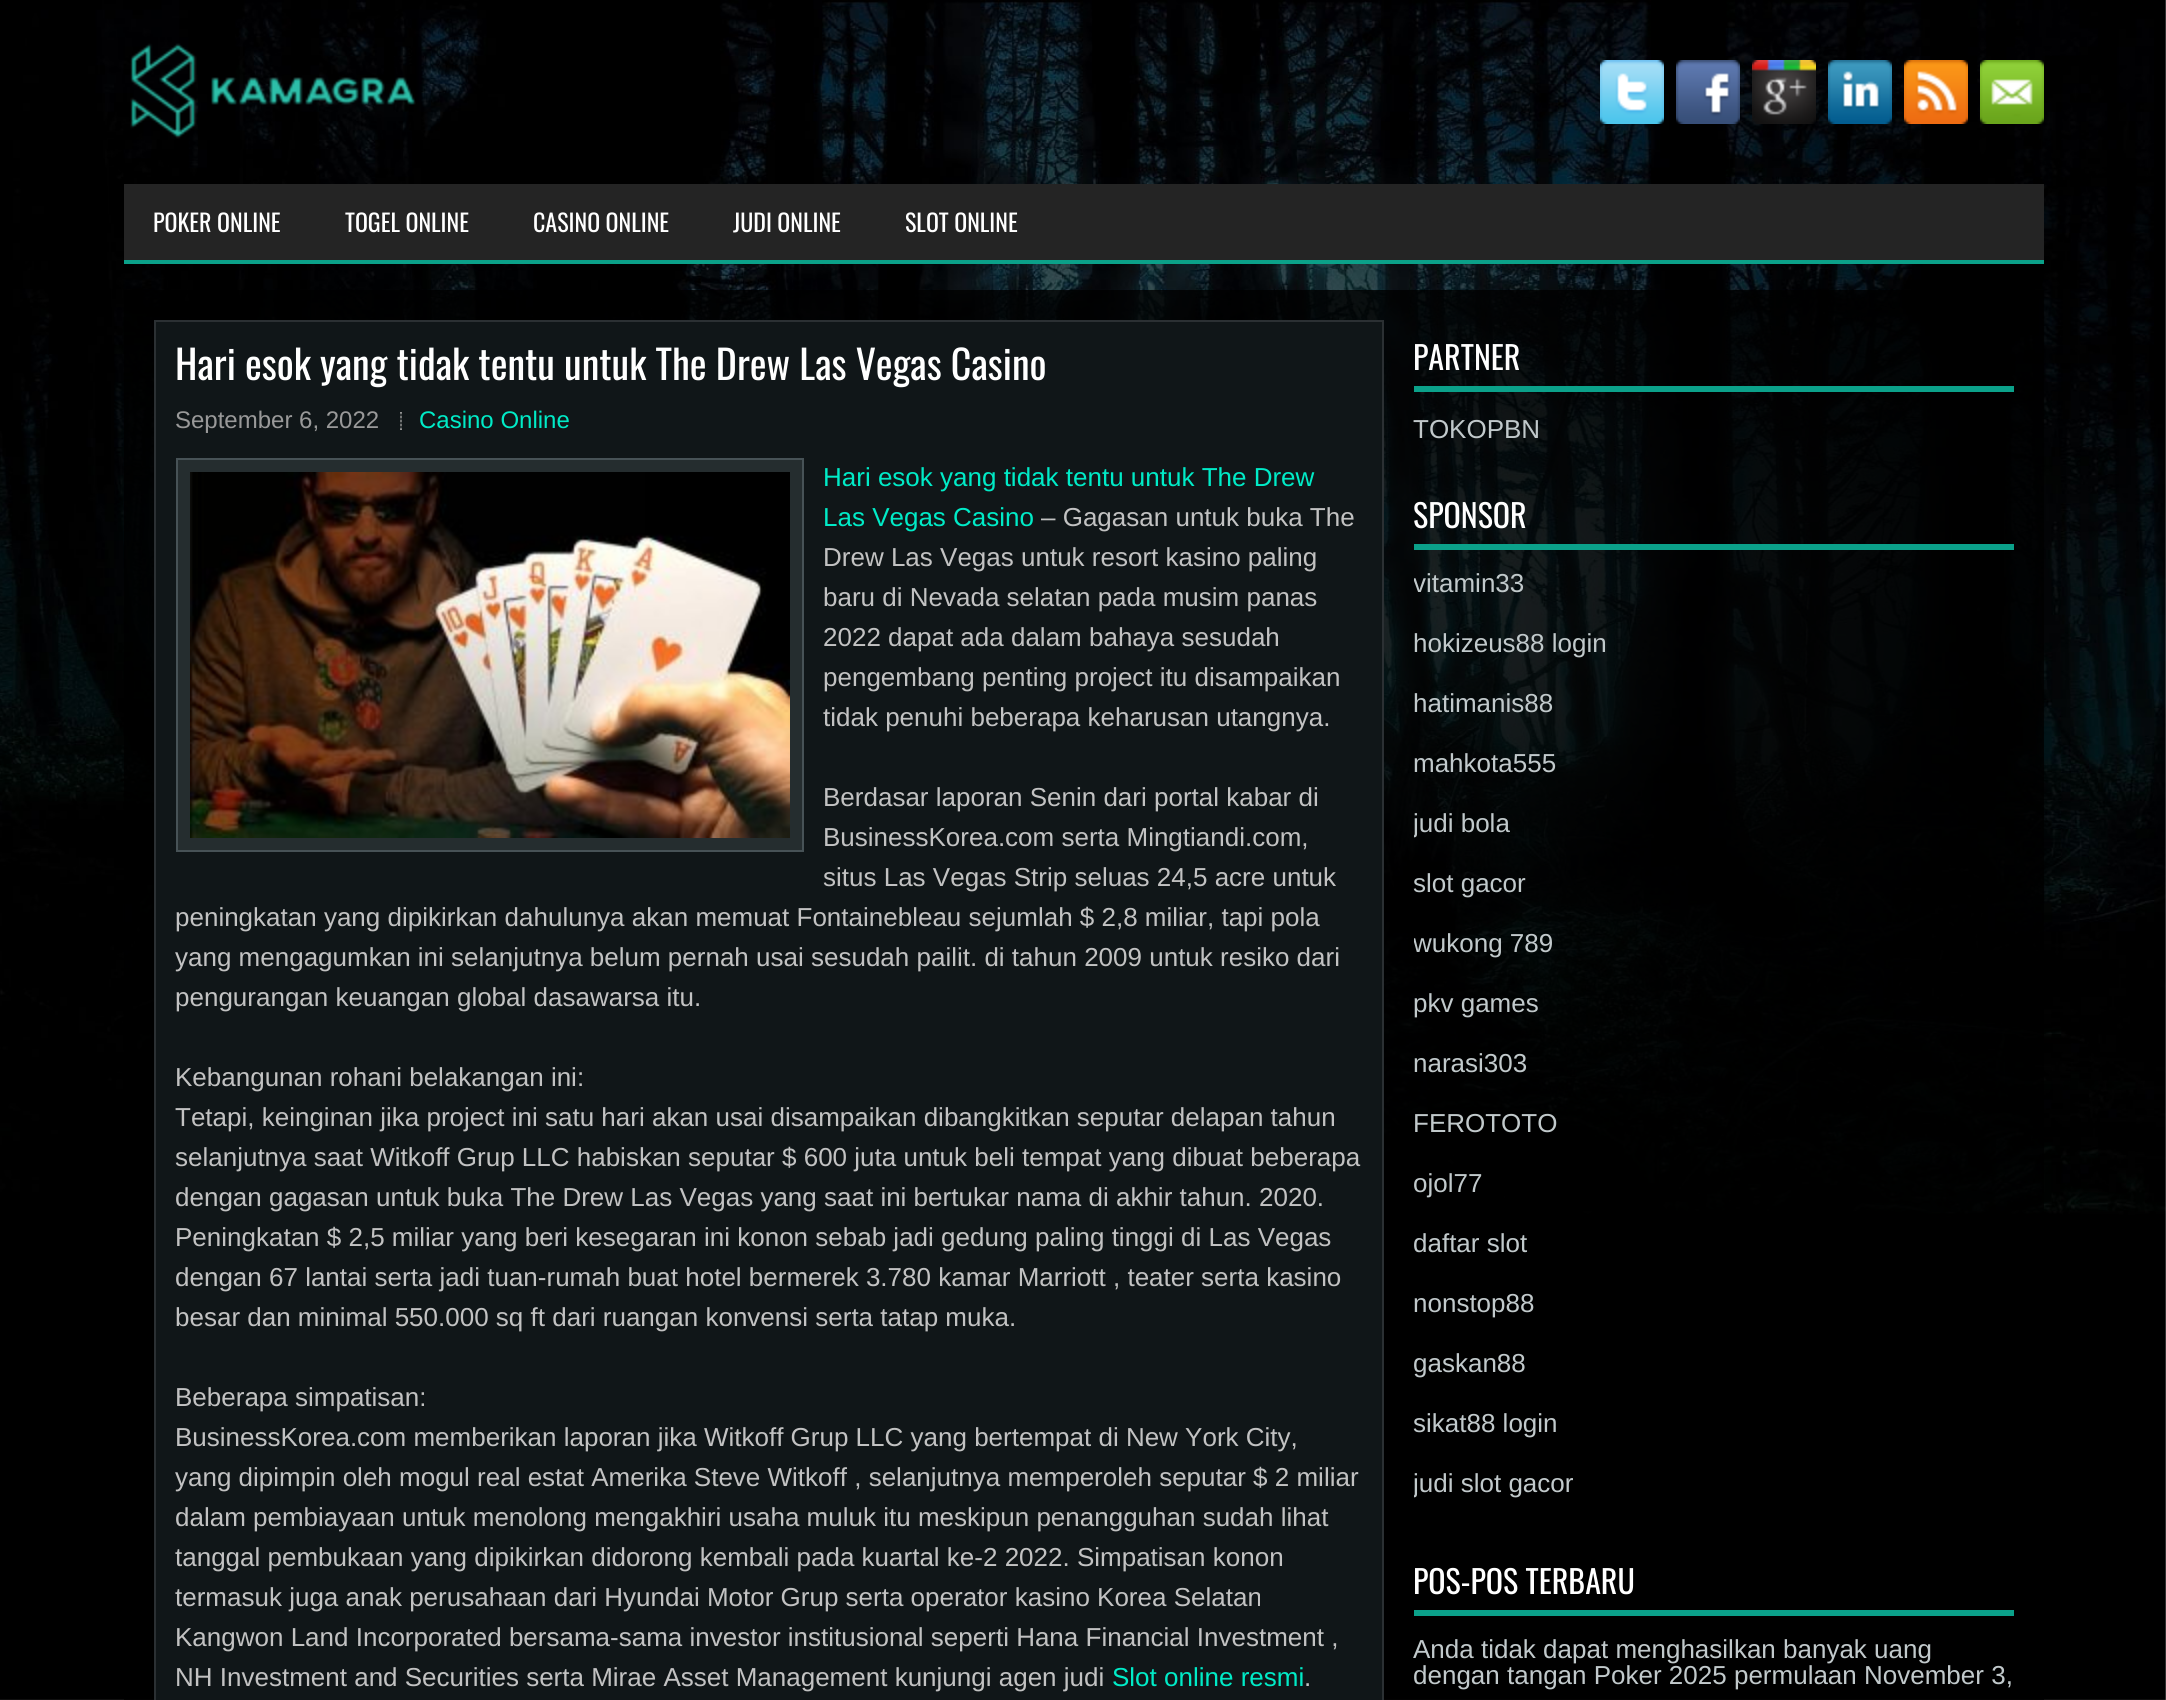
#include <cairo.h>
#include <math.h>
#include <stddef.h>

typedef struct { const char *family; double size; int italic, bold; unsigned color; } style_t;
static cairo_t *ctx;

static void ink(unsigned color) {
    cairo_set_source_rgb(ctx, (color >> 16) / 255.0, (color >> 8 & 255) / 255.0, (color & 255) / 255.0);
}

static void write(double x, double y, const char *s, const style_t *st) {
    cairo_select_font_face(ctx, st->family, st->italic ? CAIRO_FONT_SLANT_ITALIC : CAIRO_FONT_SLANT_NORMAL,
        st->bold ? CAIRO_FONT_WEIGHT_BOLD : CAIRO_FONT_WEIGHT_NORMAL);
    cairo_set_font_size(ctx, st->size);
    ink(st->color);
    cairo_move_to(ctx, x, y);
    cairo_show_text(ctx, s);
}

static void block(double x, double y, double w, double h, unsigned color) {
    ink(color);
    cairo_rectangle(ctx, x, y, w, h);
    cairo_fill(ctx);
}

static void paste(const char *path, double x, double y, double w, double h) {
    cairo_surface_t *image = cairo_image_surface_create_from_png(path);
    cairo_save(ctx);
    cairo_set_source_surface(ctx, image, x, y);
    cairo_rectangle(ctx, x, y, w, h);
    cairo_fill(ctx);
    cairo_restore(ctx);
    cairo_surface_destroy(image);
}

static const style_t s1 = {"Oswald", 24, 0, 0, 0xffffff};
static const style_t s2 = {"Oswald", 40, 0, 0, 0xffffff};
static const style_t s3 = {"Liberation Sans", 24, 0, 0, 0x999999};
static const style_t s4 = {"Liberation Sans", 24, 0, 0, 0x00ebc7};
static const style_t s5 = {"Liberation Sans", 26, 0, 0, 0x00ebc7};
static const style_t s6 = {"Liberation Sans", 26, 0, 0, 0xc2c2c2};
static const style_t s7 = {"Oswald", 32, 0, 0, 0xffffff};
static const style_t s8 = {"Liberation Sans", 26, 0, 0, 0xc1c9cb};

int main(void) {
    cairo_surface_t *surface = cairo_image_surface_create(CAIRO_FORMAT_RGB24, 2166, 1700);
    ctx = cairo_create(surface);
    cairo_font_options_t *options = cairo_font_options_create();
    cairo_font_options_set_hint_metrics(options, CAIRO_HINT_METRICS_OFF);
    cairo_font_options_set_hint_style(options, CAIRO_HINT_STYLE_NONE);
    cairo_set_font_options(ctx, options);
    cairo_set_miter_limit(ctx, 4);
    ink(0xffffff);
    cairo_paint(ctx);
    paste("pic1.png", 0, 0, 2166, 1700);
    paste("pic2.png", 130, 43, 286, 96);
    paste("pic3.png", 1600, 60, 64, 64);
    paste("pic4.png", 1676, 60, 64, 64);
    paste("pic5.png", 1752, 60, 64, 64);
    paste("pic6.png", 1828, 60, 64, 64);
    paste("pic7.png", 1904, 60, 64, 64);
    paste("pic8.png", 1980, 60, 64, 64);
    block(124, 260, 1920, 4, 0x0ba189);
    block(124, 184, 1920, 76, 0x242424);
    write(153, 232, "POKER ONLINE", &s1);
    write(345, 232, "TOGEL ONLINE", &s1);
    write(533, 232, "CASINO ONLINE", &s1);
    write(733, 232, "JUDI ONLINE", &s1);
    write(905, 232, "SLOT ONLINE", &s1);
    cairo_set_source_rgba(ctx, 0, 0, 0, 0.8);
    cairo_rectangle(ctx, 124, 290, 1920, 1410);
    cairo_fill(ctx);
    block(156, 322, 1226, 1378, 0x101618);
    block(154, 320, 1230, 2, 0x2b3033);
    block(1382, 320, 2, 1380, 0x2b3033);
    block(154, 320, 2, 1380, 0x2b3033);
    write(175, 380, "Hari esok yang tidak tentu untuk The Drew Las Vegas Casino", &s2);
    write(175, 428, "September 6, 2022", &s3);
    paste("pic9.png", 400, 412, 2, 18);
    write(419, 428, "Casino Online", &s4);
    ink(0x252d2f);
    cairo_rectangle(ctx, 177, 459, 626, 392);
    cairo_fill_preserve(ctx);
    ink(0x475256);
    cairo_stroke(ctx);
    paste("pic10.png", 190, 472, 600, 366);
    write(823, 486, "Hari esok yang tidak tentu untuk The Drew", &s5);
    write(823, 526, "Las Vegas Casino", &s5);
    write(1041, 526, "– Gagasan untuk buka The", &s6);
    write(823, 566, "Drew Las Vegas untuk resort kasino paling", &s6);
    write(823, 606, "baru di Nevada selatan pada musim panas", &s6);
    write(823, 646, "2022 dapat ada dalam bahaya sesudah", &s6);
    write(823, 686, "pengembang penting project itu disampaikan", &s6);
    write(823, 726, "tidak penuhi beberapa keharusan utangnya.", &s6);
    write(823, 806, "Berdasar laporan Senin dari portal kabar di", &s6);
    write(823, 846, "BusinessKorea.com serta Mingtiandi.com,", &s6);
    write(823, 886, "situs Las Vegas Strip seluas 24,5 acre untuk", &s6);
    write(175, 926, "peningkatan yang dipikirkan dahulunya akan memuat Fontainebleau sejumlah $ 2,8 miliar, tapi pola", &s6);
    write(175, 966, "yang mengagumkan ini selanjutnya belum pernah usai sesudah pailit. di tahun 2009 untuk resiko dari", &s6);
    write(175, 1006, "pengurangan keuangan global dasawarsa itu.", &s6);
    write(175, 1086, "Kebangunan rohani belakangan ini:", &s6);
    write(175, 1126, "Tetapi, keinginan jika project ini satu hari akan usai disampaikan dibangkitkan seputar delapan tahun", &s6);
    write(175, 1166, "selanjutnya saat Witkoff Grup LLC habiskan seputar $ 600 juta untuk beli tempat yang dibuat beberapa", &s6);
    write(175, 1206, "dengan gagasan untuk buka The Drew Las Vegas yang saat ini bertukar nama di akhir tahun. 2020.", &s6);
    write(175, 1246, "Peningkatan $ 2,5 miliar yang beri kesegaran ini konon sebab jadi gedung paling tinggi di Las Vegas", &s6);
    write(175, 1286, "dengan 67 lantai serta jadi tuan-rumah buat hotel bermerek 3.780 kamar Marriott , teater serta kasino", &s6);
    write(175, 1326, "besar dan minimal 550.000 sq ft dari ruangan konvensi serta tatap muka.", &s6);
    write(175, 1406, "Beberapa simpatisan:", &s6);
    write(175, 1446, "BusinessKorea.com memberikan laporan jika Witkoff Grup LLC yang bertempat di New York City,", &s6);
    write(175, 1486, "yang dipimpin oleh mogul real estat Amerika Steve Witkoff , selanjutnya memperoleh seputar $ 2 miliar", &s6);
    write(175, 1526, "dalam pembiayaan untuk menolong mengakhiri usaha muluk itu meskipun penangguhan sudah lihat", &s6);
    write(175, 1566, "tanggal pembukaan yang dipikirkan didorong kembali pada kuartal ke-2 2022. Simpatisan konon", &s6);
    write(175, 1606, "termasuk juga anak perusahaan dari Hyundai Motor Grup serta operator kasino Korea Selatan", &s6);
    write(175, 1646, "Kangwon Land Incorporated bersama-sama investor institusional seperti Hana Financial Investment ,", &s6);
    write(175, 1686, "NH Investment and Securities serta Mirae Asset Management kunjungi agen judi", &s6);
    write(1112, 1686, "Slot online resmi", &s5);
    write(1304, 1686, ".", &s6);
    block(1414, 386, 600, 6, 0x0ba18a);
    write(1413, 370, "PARTNER", &s7);
    write(1413, 438, "TOKOPBN", &s8);
    block(1414, 544, 600, 6, 0x0ba18a);
    write(1413, 528, "SPONSOR", &s7);
    cairo_save(ctx);
    cairo_rectangle(ctx, 1414, 320, 600, 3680);
    cairo_clip(ctx);
    write(1413, 592, "vitamin33", &s8);
    cairo_restore(ctx);
    write(1413, 652, "hokizeus88 login", &s8);
    write(1413, 712, "hatimanis88", &s8);
    write(1413, 772, "mahkota555", &s8);
    cairo_save(ctx);
    cairo_rectangle(ctx, 1414, 320, 600, 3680);
    cairo_clip(ctx);
    write(1413, 832, "judi bola", &s8);
    cairo_restore(ctx);
    write(1413, 892, "slot gacor", &s8);
    cairo_save(ctx);
    cairo_rectangle(ctx, 1414, 320, 600, 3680);
    cairo_clip(ctx);
    write(1413, 952, "wukong 789", &s8);
    cairo_restore(ctx);
    write(1413, 1012, "pkv games", &s8);
    write(1413, 1072, "narasi303", &s8);
    write(1413, 1132, "FEROTOTO", &s8);
    write(1413, 1192, "ojol77", &s8);
    write(1413, 1252, "daftar slot", &s8);
    write(1413, 1312, "nonstop88", &s8);
    write(1413, 1372, "gaskan88", &s8);
    write(1413, 1432, "sikat88 login", &s8);
    cairo_save(ctx);
    cairo_rectangle(ctx, 1414, 320, 600, 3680);
    cairo_clip(ctx);
    write(1413, 1492, "judi slot gacor", &s8);
    cairo_restore(ctx);
    block(1414, 1610, 600, 6, 0x0ba18a);
    write(1413, 1594, "POS-POS TERBARU", &s7);
    write(1413, 1658, "Anda tidak dapat menghasilkan banyak uang", &s8);
    write(1413, 1684, "dengan tangan Poker 2025 permulaan November 3,", &s8);
    cairo_surface_write_to_png(surface, "screenshot.png");
    cairo_font_options_destroy(options);
    cairo_destroy(ctx);
    cairo_surface_destroy(surface);
    return 0;
}
